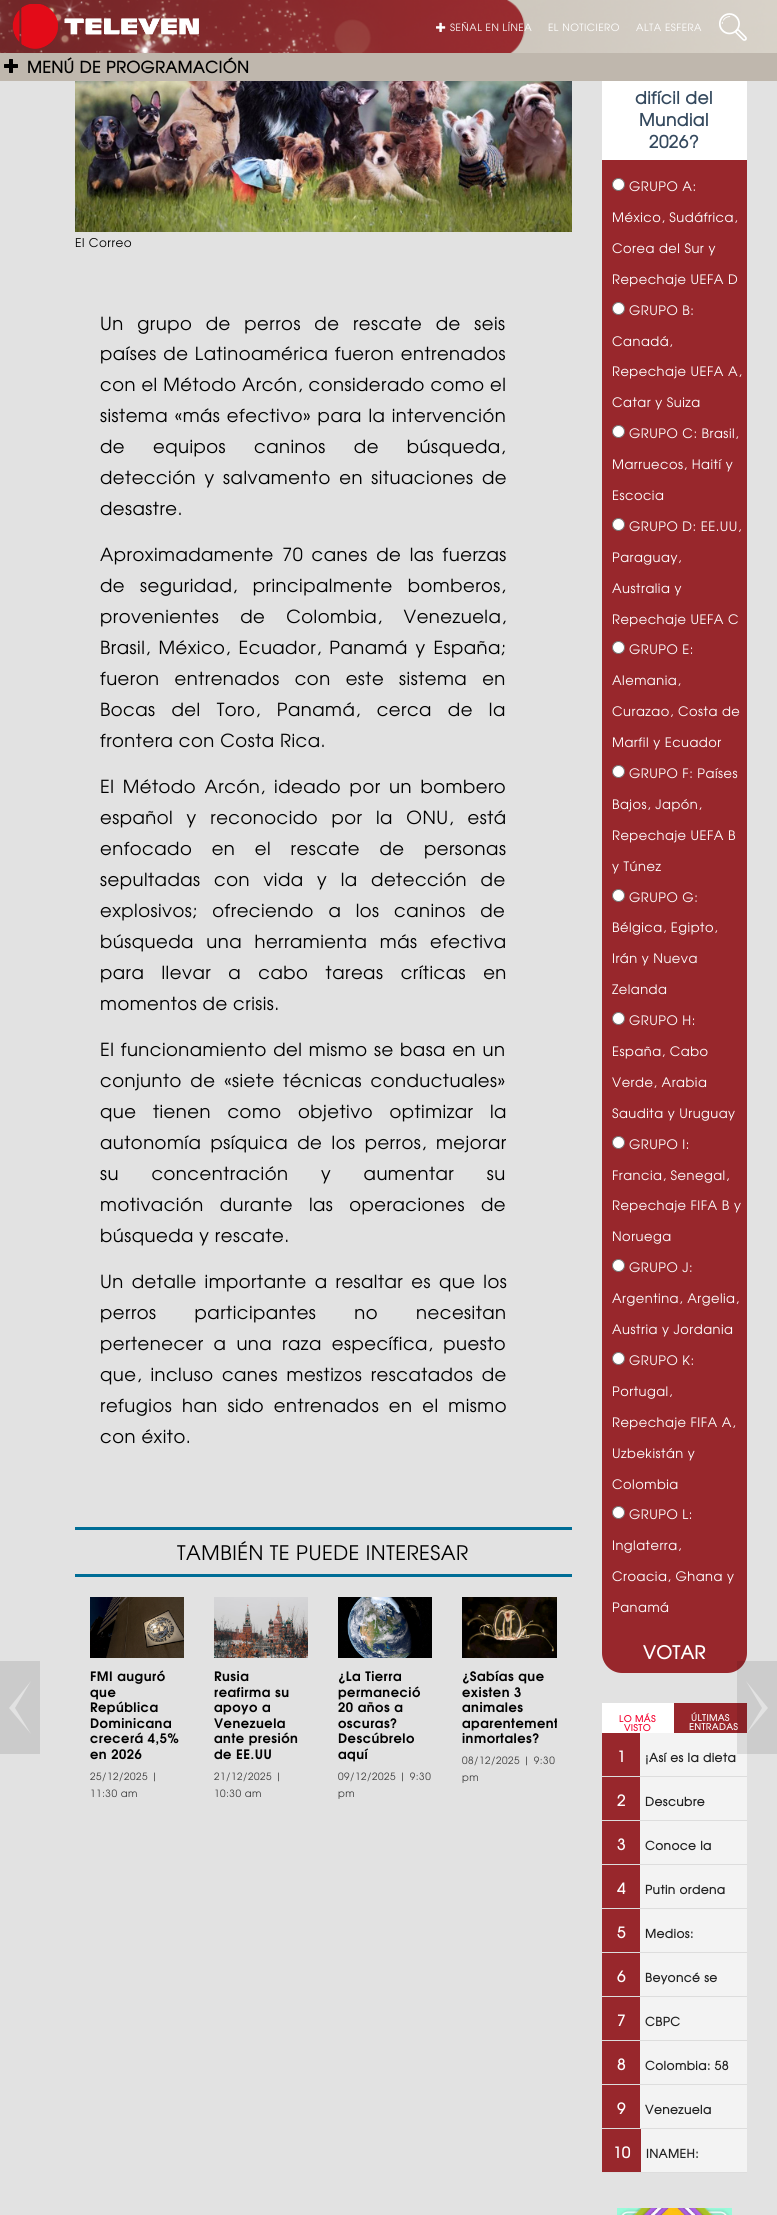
#include <cairo.h>
#include <math.h>
#include <stddef.h>

static cairo_t *ctx;

static void ink(unsigned color) {
    cairo_set_source_rgb(ctx, (color >> 16) / 255.0, (color >> 8 & 255) / 255.0, (color & 255) / 255.0);
}

static void write_spaced(double x, double y, const char *s, double letter, double word) {
    cairo_move_to(ctx, x, y);
    while (*s) {
        char ch[5] = {0};
        int n = 0;
        do ch[n++] = *s++; while ((*s & 0xC0) == 0x80);
        cairo_show_text(ctx, ch);
        cairo_rel_move_to(ctx, letter + word * (*ch == ' '), 0);
    }
}

static void block(double x, double y, double w, double h, unsigned color) {
    ink(color);
    cairo_rectangle(ctx, x, y, w, h);
    cairo_fill(ctx);
}

static void paste(const char *path, double x, double y, double w, double h) {
    cairo_surface_t *image = cairo_image_surface_create_from_png(path);
    cairo_save(ctx);
    cairo_set_source_surface(ctx, image, x, y);
    cairo_rectangle(ctx, x, y, w, h);
    cairo_fill(ctx);
    cairo_restore(ctx);
    cairo_surface_destroy(image);
}

int main(void) {
    cairo_surface_t *surface = cairo_image_surface_create(CAIRO_FORMAT_RGB24, 777, 2215);
    ctx = cairo_create(surface);
    cairo_font_options_t *options = cairo_font_options_create();
    cairo_font_options_set_hint_metrics(options, CAIRO_HINT_METRICS_OFF);
    cairo_font_options_set_hint_style(options, CAIRO_HINT_STYLE_NONE);
    cairo_set_font_options(ctx, options);
    cairo_set_miter_limit(ctx, 4);
    ink(0xe2e2e2);
    cairo_paint(ctx);
    paste("pic1.png", 0, 0, 777, 53);
    paste("pic2.png", 12, 4, 187, 45);
    paste("pic3.png", 436, 22, 10, 10);
    cairo_select_font_face(ctx, "TeX Gyre Adventor", CAIRO_FONT_SLANT_NORMAL, CAIRO_FONT_WEIGHT_NORMAL);
    cairo_set_font_size(ctx, 10);
    ink(0xffffff);
    write_spaced(450, 31, "SEÑAL EN LÍNEA", 0.5, 0);
    write_spaced(548, 31, "EL NOTICIERO", 0.5, 0);
    write_spaced(636, 31, "ALTA ESFERA", 0.5, 0);
    paste("pic4.png", 719, 13, 28, 28);
    block(0, 53, 777, 28, 0xbfb7ad);
    paste("pic5.png", 4, 59, 14, 14);
    cairo_select_font_face(ctx, "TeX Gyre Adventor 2", CAIRO_FONT_SLANT_NORMAL, CAIRO_FONT_WEIGHT_BOLD);
    cairo_set_font_size(ctx, 16);
    ink(0x000000);
    write_spaced(27, 73, "MENÚ DE PROGRAMACIÓN", 0.5, 0);
    ink(0xcbcbcb);
    cairo_new_path(ctx);
    cairo_move_to(ctx, 0, 1661);
    cairo_line_to(ctx, 0, 1754);
    cairo_line_to(ctx, 40, 1754);
    cairo_line_to(ctx, 40, 1661);
    cairo_close_path(ctx);
    cairo_move_to(ctx, 31, 1734);
    cairo_line_to(ctx, 9, 1708);
    cairo_line_to(ctx, 31, 1681);
    cairo_line_to(ctx, 15, 1708);
    cairo_close_path(ctx);
    cairo_fill(ctx);
    paste("pic6.png", 75, 81, 497, 151);
    cairo_select_font_face(ctx, "TeX Gyre Adventor", CAIRO_FONT_SLANT_NORMAL, CAIRO_FONT_WEIGHT_NORMAL);
    cairo_set_font_size(ctx, 12);
    ink(0x000000);
    write_spaced(75, 247, "El Correo", 0.5, 0);
    cairo_set_font_size(ctx, 18);
    write_spaced(100, 330, "Un grupo de perros de rescate de seis", 0.5, 8);
    write_spaced(100, 360, "países de Latinoamérica fueron entrenados", 0.5, 1);
    write_spaced(100, 391, "con el Método Arcón, considerado como el", 0.5, 0);
    write_spaced(100, 422, "sistema «más efectivo» para la intervención", 0.5, 1);
    write_spaced(100, 453, "de equipos caninos de búsqueda,", 0.5, 22.5);
    write_spaced(100, 484, "detección y salvamento en situaciones de", 0.5, 3);
    write_spaced(100, 515, "desastre.", 0.5, 0);
    write_spaced(100, 561, "Aproximadamente 70 canes de las fuerzas", 0.5, 3);
    write_spaced(100, 592, "de seguridad, principalmente bomberos,", 0.5, 9.5);
    write_spaced(100, 623, "provenientes de Colombia, Venezuela,", 0.5, 15.5);
    write_spaced(100, 654, "Brasil, México, Ecuador, Panamá y España;", 0.5, 2.25);
    write_spaced(100, 685, "fueron entrenados con este sistema en", 0.5, 9.5);
    write_spaced(100, 716, "Bocas del Toro, Panamá, cerca de la", 0.5, 10.5);
    write_spaced(100, 747, "frontera con Costa Rica.", 0.5, 0);
    write_spaced(100, 793, "El Método Arcón, ideado por un bombero", 0.5, 3);
    write_spaced(100, 824, "español y reconocido por la ONU, está", 0.5, 8);
    write_spaced(100, 855, "enfocado en el rescate de personas", 0.5, 14);
    write_spaced(100, 886, "sepultadas con vida y la detección de", 0.5, 8);
    write_spaced(100, 917, "explosivos; ofreciendo a los caninos de", 0.5, 9);
    write_spaced(100, 948, "búsqueda una herramienta más efectiva", 0.5, 7);
    write_spaced(100, 979, "para llevar a cabo tareas críticas en", 0.5, 11.75);
    write_spaced(100, 1010, "momentos de crisis.", 0.5, 0);
    write_spaced(100, 1056, "El funcionamiento del mismo se basa en un", 0.5, 1);
    write_spaced(100, 1087, "conjunto de «siete técnicas conductuales»", 0.5, 3);
    write_spaced(100, 1118, "que tienen como objetivo optimizar la", 0.5, 11);
    write_spaced(100, 1149, "autonomía psíquica de los perros, mejorar", 0.5, 3.75);
    write_spaced(100, 1180, "su concentración y aumentar su", 0.5, 27);
    write_spaced(100, 1211, "motivación durante las operaciones de", 0.5, 10.5);
    write_spaced(100, 1242, "búsqueda y rescate.", 0.5, 0);
    write_spaced(100, 1288, "Un detalle importante a resaltar es que los", 0.5, 2.5);
    write_spaced(100, 1319, "perros participantes no necesitan", 0.5, 32.5);
    write_spaced(100, 1350, "pertenecer a una raza específica, puesto", 0.5, 4.5);
    write_spaced(100, 1381, "que, incluso canes mestizos rescatados de", 0.5, 3);
    write_spaced(100, 1412, "refugios han sido entrenados en el mismo", 0.5, 4.25);
    write_spaced(100, 1443, "con éxito.", 0.5, 0);
    block(75, 1527, 497, 3, 0x006d96);
    block(75, 1574, 497, 3, 0x006d96);
    cairo_set_font_size(ctx, 20);
    ink(0x000000);
    write_spaced(177, 1560, "TAMBIÉN TE PUEDE INTERESAR", 0.5, 0);
    paste("pic7.png", 90, 1597, 94, 61);
    cairo_select_font_face(ctx, "TeX Gyre Adventor", CAIRO_FONT_SLANT_NORMAL, CAIRO_FONT_WEIGHT_BOLD);
    cairo_set_font_size(ctx, 13);
    write_spaced(90, 1681, "FMI auguró", 0.5, 0);
    write_spaced(90, 1697, "que", 0.5, 0);
    write_spaced(90, 1712, "República", 0.5, 0);
    write_spaced(90, 1728, "Dominicana", 0.5, 0);
    write_spaced(90, 1743, "crecerá 4,5%", 0.5, 0);
    write_spaced(90, 1759, "en 2026", 0.5, 0);
    cairo_select_font_face(ctx, "TeX Gyre Adventor", CAIRO_FONT_SLANT_NORMAL, CAIRO_FONT_WEIGHT_NORMAL);
    cairo_set_font_size(ctx, 10);
    ink(0x3a3a3a);
    write_spaced(90, 1780, "25/12/2025 |", 0.5, 0);
    write_spaced(90, 1797, "11:30 am", 0.5, 0);
    paste("pic8.png", 214, 1597, 94, 61);
    cairo_select_font_face(ctx, "TeX Gyre Adventor", CAIRO_FONT_SLANT_NORMAL, CAIRO_FONT_WEIGHT_BOLD);
    cairo_set_font_size(ctx, 13);
    ink(0x000000);
    write_spaced(214, 1681, "Rusia", 0.5, 0);
    write_spaced(214, 1697, "reafirma su", 0.5, 0);
    write_spaced(214, 1712, "apoyo a", 0.5, 0);
    write_spaced(214, 1728, "Venezuela", 0.5, 0);
    write_spaced(214, 1743, "ante presión", 0.5, 0);
    write_spaced(214, 1759, "de EE.UU", 0.5, 0);
    cairo_select_font_face(ctx, "TeX Gyre Adventor", CAIRO_FONT_SLANT_NORMAL, CAIRO_FONT_WEIGHT_NORMAL);
    cairo_set_font_size(ctx, 10);
    ink(0x3a3a3a);
    write_spaced(214, 1780, "21/12/2025 |", 0.5, 0);
    write_spaced(214, 1797, "10:30 am", 0.5, 0);
    paste("pic9.png", 338, 1597, 94, 61);
    cairo_select_font_face(ctx, "TeX Gyre Adventor", CAIRO_FONT_SLANT_NORMAL, CAIRO_FONT_WEIGHT_BOLD);
    cairo_set_font_size(ctx, 13);
    ink(0x000000);
    write_spaced(338, 1681, "¿La Tierra", 0.5, 0);
    write_spaced(338, 1697, "permaneció", 0.5, 0);
    write_spaced(338, 1712, "20 años a", 0.5, 0);
    write_spaced(338, 1728, "oscuras?", 0.5, 0);
    write_spaced(338, 1743, "Descúbrelo", 0.5, 0);
    write_spaced(338, 1759, "aquí", 0.5, 0);
    cairo_select_font_face(ctx, "TeX Gyre Adventor", CAIRO_FONT_SLANT_NORMAL, CAIRO_FONT_WEIGHT_NORMAL);
    cairo_set_font_size(ctx, 10);
    ink(0x3a3a3a);
    write_spaced(338, 1780, "09/12/2025 | 9:30", 0.5, 0);
    write_spaced(338, 1797, "pm", 0.5, 0);
    paste("pic10.png", 462, 1597, 95, 61);
    cairo_select_font_face(ctx, "TeX Gyre Adventor", CAIRO_FONT_SLANT_NORMAL, CAIRO_FONT_WEIGHT_BOLD);
    cairo_set_font_size(ctx, 13);
    ink(0x000000);
    write_spaced(462, 1681, "¿Sabías que", 0.5, 0);
    write_spaced(462, 1697, "existen 3", 0.5, 0);
    write_spaced(462, 1712, "animales", 0.5, 0);
    cairo_save(ctx);
    cairo_rectangle(ctx, 462, 1658, 95, 93);
    cairo_clip(ctx);
    write_spaced(462, 1728, "aparentement", 0.5, 0);
    cairo_restore(ctx);
    write_spaced(462, 1743, "inmortales?", 0.5, 0);
    cairo_select_font_face(ctx, "TeX Gyre Adventor", CAIRO_FONT_SLANT_NORMAL, CAIRO_FONT_WEIGHT_NORMAL);
    cairo_set_font_size(ctx, 10);
    ink(0x3a3a3a);
    write_spaced(462, 1764, "08/12/2025 | 9:30", 0.5, 0);
    write_spaced(462, 1781, "pm", 0.5, 0);
    block(602, 81, 145, 79, 0xffffff);
    cairo_select_font_face(ctx, "TeX Gyre Adventor 2", CAIRO_FONT_SLANT_NORMAL, CAIRO_FONT_WEIGHT_BOLD);
    cairo_set_font_size(ctx, 17);
    ink(0x34495e);
    write_spaced(635, 104, "difícil del", 0.5, 0);
    write_spaced(639, 126, "Mundial", 0.5, 0);
    write_spaced(649, 148, "2026?", 0.5, 0);
    block(602, 160, 145, 1472, 0x98272c);
    ink(0xffffff);
    cairo_new_path(ctx);
    cairo_arc(ctx, 618.5, 184.5, 6, 0, 2 * M_PI);
    cairo_fill_preserve(ctx);
    ink(0x767676);
    cairo_set_line_width(ctx, 1);
    cairo_stroke(ctx);
    cairo_select_font_face(ctx, "TeX Gyre Adventor", CAIRO_FONT_SLANT_NORMAL, CAIRO_FONT_WEIGHT_NORMAL);
    cairo_set_font_size(ctx, 13);
    ink(0xffffff);
    write_spaced(629, 191, "GRUPO A:", 0.5, 0);
    write_spaced(612, 222, "México, Sudáfrica,", 0.5, 0);
    write_spaced(612, 253, "Corea del Sur y", 0.5, 0);
    write_spaced(612, 284, "Repechaje UEFA D", 0.5, 0);
    cairo_new_path(ctx);
    cairo_arc(ctx, 618.5, 308.5, 6, 0, 2 * M_PI);
    cairo_fill_preserve(ctx);
    ink(0x767676);
    cairo_stroke(ctx);
    ink(0xffffff);
    write_spaced(629, 315, "GRUPO B:", 0.5, 0);
    write_spaced(612, 346, "Canadá,", 0.5, 0);
    write_spaced(612, 376, "Repechaje UEFA A,", 0.5, 0);
    write_spaced(612, 407, "Catar y Suiza", 0.5, 0);
    cairo_new_path(ctx);
    cairo_arc(ctx, 618.5, 431.5, 6, 0, 2 * M_PI);
    cairo_fill_preserve(ctx);
    ink(0x767676);
    cairo_stroke(ctx);
    ink(0xffffff);
    write_spaced(629, 438, "GRUPO C: Brasil,", 0.5, 0);
    write_spaced(612, 469, "Marruecos, Haití y", 0.5, 0);
    write_spaced(612, 500, "Escocia", 0.5, 0);
    cairo_new_path(ctx);
    cairo_arc(ctx, 618.5, 524.5, 6, 0, 2 * M_PI);
    cairo_fill_preserve(ctx);
    ink(0x767676);
    cairo_stroke(ctx);
    ink(0xffffff);
    write_spaced(629, 531, "GRUPO D: EE.UU,", 0.5, 0);
    write_spaced(612, 562, "Paraguay,", 0.5, 0);
    write_spaced(612, 593, "Australia y", 0.5, 0);
    write_spaced(612, 624, "Repechaje UEFA C", 0.5, 0);
    cairo_new_path(ctx);
    cairo_arc(ctx, 618.5, 647.5, 6, 0, 2 * M_PI);
    cairo_fill_preserve(ctx);
    ink(0x767676);
    cairo_stroke(ctx);
    ink(0xffffff);
    write_spaced(629, 654, "GRUPO E:", 0.5, 0);
    write_spaced(612, 685, "Alemania,", 0.5, 0);
    write_spaced(612, 716, "Curazao, Costa de", 0.5, 0);
    write_spaced(612, 747, "Marfil y Ecuador", 0.5, 0);
    cairo_new_path(ctx);
    cairo_arc(ctx, 618.5, 771.5, 6, 0, 2 * M_PI);
    cairo_fill_preserve(ctx);
    ink(0x767676);
    cairo_stroke(ctx);
    ink(0xffffff);
    write_spaced(629, 778, "GRUPO F: Países", 0.5, 0);
    write_spaced(612, 809, "Bajos, Japón,", 0.5, 0);
    write_spaced(612, 840, "Repechaje UEFA B", 0.5, 0);
    write_spaced(612, 871, "y Túnez", 0.5, 0);
    cairo_new_path(ctx);
    cairo_arc(ctx, 618.5, 895.5, 6, 0, 2 * M_PI);
    cairo_fill_preserve(ctx);
    ink(0x767676);
    cairo_stroke(ctx);
    ink(0xffffff);
    write_spaced(629, 902, "GRUPO G:", 0.5, 0);
    write_spaced(612, 932, "Bélgica, Egipto,", 0.5, 0);
    write_spaced(612, 963, "Irán y Nueva", 0.5, 0);
    write_spaced(612, 994, "Zelanda", 0.5, 0);
    cairo_new_path(ctx);
    cairo_arc(ctx, 618.5, 1018.5, 6, 0, 2 * M_PI);
    cairo_fill_preserve(ctx);
    ink(0x767676);
    cairo_stroke(ctx);
    ink(0xffffff);
    write_spaced(629, 1025, "GRUPO H:", 0.5, 0);
    write_spaced(612, 1056, "España, Cabo", 0.5, 0);
    write_spaced(612, 1087, "Verde, Arabia", 0.5, 0);
    write_spaced(612, 1118, "Saudita y Uruguay", 0.5, 0);
    cairo_new_path(ctx);
    cairo_arc(ctx, 618.5, 1142.5, 6, 0, 2 * M_PI);
    cairo_fill_preserve(ctx);
    ink(0x767676);
    cairo_stroke(ctx);
    ink(0xffffff);
    write_spaced(629, 1149, "GRUPO I:", 0.5, 0);
    write_spaced(612, 1180, "Francia, Senegal,", 0.5, 0);
    write_spaced(612, 1210, "Repechaje FIFA B y", 0.5, 0);
    write_spaced(612, 1241, "Noruega", 0.5, 0);
    cairo_new_path(ctx);
    cairo_arc(ctx, 618.5, 1265.5, 6, 0, 2 * M_PI);
    cairo_fill_preserve(ctx);
    ink(0x767676);
    cairo_stroke(ctx);
    ink(0xffffff);
    write_spaced(629, 1272, "GRUPO J:", 0.5, 0);
    write_spaced(612, 1303, "Argentina, Argelia,", 0.5, 0);
    write_spaced(612, 1334, "Austria y Jordania", 0.5, 0);
    cairo_new_path(ctx);
    cairo_arc(ctx, 618.5, 1358.5, 6, 0, 2 * M_PI);
    cairo_fill_preserve(ctx);
    ink(0x767676);
    cairo_stroke(ctx);
    ink(0xffffff);
    write_spaced(629, 1365, "GRUPO K:", 0.5, 0);
    write_spaced(612, 1396, "Portugal,", 0.5, 0);
    write_spaced(612, 1427, "Repechaje FIFA A,", 0.5, 0);
    write_spaced(612, 1458, "Uzbekistán y", 0.5, 0);
    write_spaced(612, 1489, "Colombia", 0.5, 0);
    cairo_new_path(ctx);
    cairo_arc(ctx, 618.5, 1512.5, 6, 0, 2 * M_PI);
    cairo_fill_preserve(ctx);
    ink(0x767676);
    cairo_stroke(ctx);
    ink(0xffffff);
    write_spaced(629, 1519, "GRUPO L:", 0.5, 0);
    write_spaced(612, 1550, "Inglaterra,", 0.5, 0);
    write_spaced(612, 1581, "Croacia, Ghana y", 0.5, 0);
    write_spaced(612, 1612, "Panamá", 0.5, 0);
    ink(0x98272c);
    cairo_new_path(ctx);
    cairo_move_to(ctx, 602, 1632);
    cairo_line_to(ctx, 747, 1632);
    cairo_line_to(ctx, 747, 1653);
    cairo_curve_to(ctx, 747, 1664, 738, 1673, 727, 1673);
    cairo_line_to(ctx, 622, 1673);
    cairo_curve_to(ctx, 611, 1673, 602, 1664, 602, 1653);
    cairo_close_path(ctx);
    cairo_fill(ctx);
    cairo_select_font_face(ctx, "TeX Gyre Adventor 2", CAIRO_FONT_SLANT_NORMAL, CAIRO_FONT_WEIGHT_BOLD);
    cairo_set_font_size(ctx, 18);
    ink(0xffffff);
    write_spaced(643, 1659, "VOTAR", 0.5, 0);
    block(602, 1703, 72, 30, 0xffffff);
    cairo_set_font_size(ctx, 9);
    ink(0xf4002d);
    write_spaced(619, 1722, "LO MÁS", 0.5, 0);
    write_spaced(624, 1731, "VISTO", 0.5, 0);
    block(674, 1703, 73, 30, 0x98272c);
    ink(0xffffff);
    write_spaced(691, 1721, "ÚLTIMAS", 0.5, 0);
    write_spaced(689, 1730, "ENTRADAS", 0.5, 0);
    block(640, 1733, 107, 43, 0xf3f3f3);
    block(602, 1776, 145, 1, 0xdddddd);
    block(602, 1733, 38, 43, 0x98272c);
    cairo_set_font_size(ctx, 15);
    ink(0xffffff);
    write_spaced(617, 1762, "1", 0.5, 0);
    cairo_set_font_size(ctx, 12);
    ink(0x212121);
    write_spaced(645, 1762, "¡Así es la dieta", 0.5, 0);
    block(640, 1777, 107, 43, 0xf3f3f3);
    block(602, 1820, 145, 1, 0xdddddd);
    block(602, 1777, 38, 43, 0x98272c);
    cairo_set_font_size(ctx, 15);
    ink(0xffffff);
    write_spaced(617, 1806, "2", 0.5, 0);
    cairo_set_font_size(ctx, 12);
    ink(0x212121);
    write_spaced(645, 1806, "Descubre", 0.5, 0);
    block(640, 1821, 107, 43, 0xf3f3f3);
    block(602, 1864, 145, 1, 0xdddddd);
    block(602, 1821, 38, 43, 0x98272c);
    cairo_set_font_size(ctx, 15);
    ink(0xffffff);
    write_spaced(617, 1850, "3", 0.5, 0);
    cairo_set_font_size(ctx, 12);
    ink(0x212121);
    write_spaced(645, 1850, "Conoce la", 0.5, 0);
    block(640, 1865, 107, 43, 0xf3f3f3);
    block(602, 1908, 145, 1, 0xdddddd);
    block(602, 1865, 38, 43, 0x98272c);
    cairo_set_font_size(ctx, 15);
    ink(0xffffff);
    write_spaced(617, 1894, "4", 0.5, 0);
    cairo_set_font_size(ctx, 12);
    ink(0x212121);
    write_spaced(645, 1894, "Putin ordena", 0.5, 0);
    block(640, 1909, 107, 43, 0xf3f3f3);
    block(602, 1952, 145, 1, 0xdddddd);
    block(602, 1909, 38, 43, 0x98272c);
    cairo_set_font_size(ctx, 15);
    ink(0xffffff);
    write_spaced(617, 1938, "5", 0.5, 0);
    cairo_set_font_size(ctx, 12);
    ink(0x212121);
    write_spaced(645, 1938, "Medios:", 0.5, 0);
    block(640, 1953, 107, 43, 0xf3f3f3);
    block(602, 1996, 145, 1, 0xdddddd);
    block(602, 1953, 38, 43, 0x98272c);
    cairo_set_font_size(ctx, 15);
    ink(0xffffff);
    write_spaced(617, 1982, "6", 0.5, 0);
    cairo_set_font_size(ctx, 12);
    ink(0x212121);
    write_spaced(645, 1982, "Beyoncé se", 0.5, 0);
    block(640, 1997, 107, 43, 0xf3f3f3);
    block(602, 2040, 145, 1, 0xdddddd);
    block(602, 1997, 38, 43, 0x98272c);
    cairo_set_font_size(ctx, 15);
    ink(0xffffff);
    write_spaced(617, 2026, "7", 0.5, 0);
    cairo_set_font_size(ctx, 12);
    ink(0x212121);
    write_spaced(645, 2026, "CBPC", 0.5, 0);
    block(640, 2041, 107, 43, 0xf3f3f3);
    block(602, 2084, 145, 1, 0xdddddd);
    block(602, 2041, 38, 43, 0x98272c);
    cairo_set_font_size(ctx, 15);
    ink(0xffffff);
    write_spaced(617, 2070, "8", 0.5, 0);
    cairo_set_font_size(ctx, 12);
    ink(0x212121);
    write_spaced(645, 2070, "Colombia: 58", 0.5, 0);
    block(640, 2085, 107, 43, 0xf3f3f3);
    block(602, 2128, 145, 1, 0xdddddd);
    block(602, 2085, 38, 43, 0x98272c);
    cairo_set_font_size(ctx, 15);
    ink(0xffffff);
    write_spaced(617, 2114, "9", 0.5, 0);
    cairo_set_font_size(ctx, 12);
    ink(0x212121);
    write_spaced(645, 2114, "Venezuela", 0.5, 0);
    block(641, 2129, 106, 43, 0xf3f3f3);
    block(602, 2172, 145, 1, 0xdddddd);
    block(602, 2129, 39, 43, 0x98272c);
    cairo_set_font_size(ctx, 15);
    ink(0xffffff);
    write_spaced(613, 2158, "10", 0.5, 0);
    cairo_set_font_size(ctx, 12);
    ink(0x212121);
    write_spaced(646, 2158, "INAMEH:", 0.5, 0);
    paste("pic11.png", 617, 2208, 115, 7);
    cairo_set_source_rgba(ctx, 0, 0, 0, 0.1);
    cairo_new_path(ctx);
    cairo_move_to(ctx, 777, 1754);
    cairo_line_to(ctx, 777, 1661);
    cairo_line_to(ctx, 737, 1661);
    cairo_line_to(ctx, 737, 1754);
    cairo_close_path(ctx);
    cairo_move_to(ctx, 746, 1681);
    cairo_line_to(ctx, 768, 1708);
    cairo_line_to(ctx, 746, 1734);
    cairo_line_to(ctx, 762, 1708);
    cairo_close_path(ctx);
    cairo_fill(ctx);
    cairo_surface_write_to_png(surface, "screenshot.png");
    cairo_font_options_destroy(options);
    cairo_destroy(ctx);
    cairo_surface_destroy(surface);
    return 0;
}
